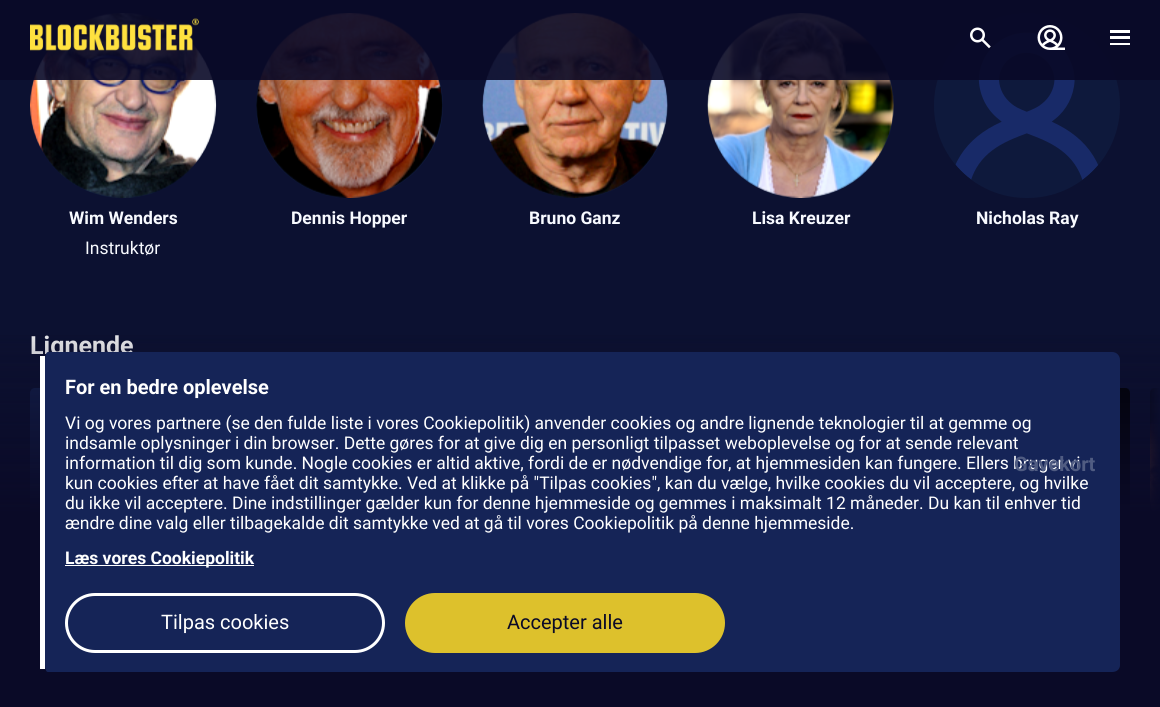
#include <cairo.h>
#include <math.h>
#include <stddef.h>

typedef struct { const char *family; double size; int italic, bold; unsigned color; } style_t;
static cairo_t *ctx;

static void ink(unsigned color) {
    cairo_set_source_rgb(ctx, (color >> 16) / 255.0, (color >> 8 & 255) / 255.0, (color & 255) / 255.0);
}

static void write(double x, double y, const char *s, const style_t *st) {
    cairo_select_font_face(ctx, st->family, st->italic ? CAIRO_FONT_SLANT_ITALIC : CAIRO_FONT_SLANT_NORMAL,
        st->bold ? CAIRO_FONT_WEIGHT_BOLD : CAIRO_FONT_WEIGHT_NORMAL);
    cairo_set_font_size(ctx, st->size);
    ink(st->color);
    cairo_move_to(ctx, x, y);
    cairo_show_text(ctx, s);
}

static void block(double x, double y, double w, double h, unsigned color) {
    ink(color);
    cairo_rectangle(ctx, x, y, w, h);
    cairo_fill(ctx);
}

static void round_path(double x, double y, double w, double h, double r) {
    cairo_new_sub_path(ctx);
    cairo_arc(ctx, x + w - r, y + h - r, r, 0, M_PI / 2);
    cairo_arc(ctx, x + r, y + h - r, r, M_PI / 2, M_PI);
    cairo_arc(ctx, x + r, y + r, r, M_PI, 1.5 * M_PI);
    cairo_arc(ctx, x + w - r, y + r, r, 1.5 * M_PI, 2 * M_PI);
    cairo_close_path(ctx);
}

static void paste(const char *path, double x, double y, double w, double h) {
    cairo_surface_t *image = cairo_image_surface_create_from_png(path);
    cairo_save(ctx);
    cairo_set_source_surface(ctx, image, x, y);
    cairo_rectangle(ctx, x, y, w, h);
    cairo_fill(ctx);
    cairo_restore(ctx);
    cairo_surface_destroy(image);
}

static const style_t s1 = {"Roboto", 17.5, 0, 1, 0xf8faff};
static const style_t s2 = {"Roboto", 17.5, 0, 0, 0xf8faff};
static const style_t s3 = {"Roboto", 25, 0, 1, 0xffffff};
static const style_t s4 = {"Roboto", 20, 0, 1, 0xffffff};
static const style_t s5 = {"Roboto", 17.5, 0, 0, 0xffffff};
static const style_t s6 = {"Roboto", 17.5, 0, 1, 0xffffff};
static const style_t s7 = {"Roboto", 20, 0, 0, 0xffffff};
static const style_t s8 = {"Roboto", 20, 0, 0, 0x0a0a27};
static const style_t s9 = {"Roboto", 20, 0, 1, 0x505c82};

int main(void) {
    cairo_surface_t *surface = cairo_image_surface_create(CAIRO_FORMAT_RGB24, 1160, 707);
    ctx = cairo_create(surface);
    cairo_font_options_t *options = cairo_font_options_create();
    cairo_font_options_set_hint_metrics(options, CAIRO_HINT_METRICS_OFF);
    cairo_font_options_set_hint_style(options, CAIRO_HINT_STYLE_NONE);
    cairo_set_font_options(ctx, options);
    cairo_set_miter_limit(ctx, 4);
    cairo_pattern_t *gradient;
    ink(0x0c1131);
    cairo_paint(ctx);
    ink(0x0e193c);
    round_path(30, 13, 186, 185, 92.5);
    cairo_fill(ctx);
    paste("pic4.png", 30, 13, 187, 185);
    round_path(256, 13, 187, 185, 92.5);
    cairo_fill(ctx);
    paste("pic5.png", 256, 13, 187, 185);
    cairo_arc(ctx, 575.5, 105.5, 92.5, 0, 2 * M_PI);
    cairo_fill(ctx);
    paste("pic6.png", 482, 13, 186, 185);
    round_path(708, 13, 186, 185, 92.5);
    cairo_fill(ctx);
    paste("pic7.png", 707, 13, 187, 185);
    round_path(934, 13, 186, 185, 92.5);
    cairo_fill(ctx);
    paste("pic8.png", 955, 32, 143, 148);
    cairo_set_source_rgba(ctx, 0.039, 0.039, 0.153, 0.9);
    cairo_rectangle(ctx, 0, 0, 1160, 80);
    cairo_fill(ctx);
    paste("pic1.png", 30, 18, 169, 33);
    paste("pic2.png", 970, 27, 21, 22);
    paste("pic3.png", 1037, 25, 28, 25);
    block(1110, 43, 20, 2, 0xffffff);
    block(1110, 30, 20, 3, 0xffffff);
    block(1110, 36, 20, 3, 0xffffff);
    write(69, 224, "Wim Wenders", &s1);
    write(85, 254, "Instruktør", &s2);
    write(291, 224, "Dennis Hopper", &s1);
    write(529, 224, "Bruno Ganz", &s1);
    write(752, 224, "Lisa Kreuzer", &s1);
    write(976, 224, "Nicholas Ray", &s1);
    write(30, 354, "Lignende", &s3);
    ink(0x14214d);
    round_path(30, 388, 260, 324, 5);
    cairo_fill(ctx);
    paste("pic9.png", 1120, 388, 10, 124);
    paste("pic10.png", 1150, 388, 10, 124);
    gradient = cairo_pattern_create_linear(1130, 576, 1160, 576);
    cairo_pattern_add_color_stop_rgba(gradient, 0, 0.047, 0.067, 0.192, 0);
    cairo_pattern_add_color_stop_rgba(gradient, 1, 0.047, 0.067, 0.192, 1);
    cairo_set_source(ctx, gradient);
    cairo_pattern_destroy(gradient);
    cairo_rectangle(ctx, 1150, 388, 10, 124);
    cairo_fill(ctx);
    gradient = cairo_pattern_create_linear(580, 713, 580, 313);
    cairo_pattern_add_color_stop_rgba(gradient, 0, 0.039, 0.039, 0.153, 1);
    cairo_pattern_add_color_stop_rgba(gradient, 0.5, 0.039, 0.039, 0.153, 1);
    cairo_pattern_add_color_stop_rgba(gradient, 1, 0.039, 0.039, 0.153, 0);
    cairo_set_source(ctx, gradient);
    cairo_pattern_destroy(gradient);
    cairo_rectangle(ctx, 0, 335, 1160, 372);
    cairo_fill(ctx);
    ink(0x152457);
    cairo_new_path(ctx);
    cairo_move_to(ctx, 48, 352);
    cairo_line_to(ctx, 1112, 352);
    cairo_curve_to(ctx, 1117, 352, 1120, 356, 1120, 360);
    cairo_line_to(ctx, 1120, 665);
    cairo_curve_to(ctx, 1120, 669, 1117, 672, 1112, 672);
    cairo_line_to(ctx, 48, 672);
    cairo_curve_to(ctx, 46, 672, 45, 669, 45, 665);
    cairo_line_to(ctx, 45, 360);
    cairo_curve_to(ctx, 45, 356, 46, 352, 48, 352);
    cairo_close_path(ctx);
    cairo_fill(ctx);
    block(40, 356, 5, 313, 0xffffff);
    write(65, 394, "For en bedre oplevelse", &s4);
    write(65, 429, "Vi og vores partnere (se den fulde liste i vores Cookiepolitik) anvender cookies og andre lignende teknologier til at gemme og", &s5);
    write(65, 449, "indsamle oplysninger i din browser. Dette gøres for at give dig en personligt tilpasset weboplevelse og for at sende relevant", &s5);
    write(65, 469, "information til dig som kunde. Nogle cookies er altid aktive, fordi de er nødvendige for, at hjemmesiden kan fungere. Ellers bruger vi", &s5);
    write(65, 489, "kun cookies efter at have fået dit samtykke. Ved at klikke på \"Tilpas cookies\", kan du vælge, hvilke cookies du vil acceptere, og hvilke", &s5);
    write(65, 509, "du ikke vil acceptere. Dine indstillinger gælder kun for denne hjemmeside og gemmes i maksimalt 12 måneder. Du kan til enhver tid", &s5);
    write(65, 529, "ændre dine valg eller tilbagekalde dit samtykke ved at gå til vores Cookiepolitik på denne hjemmeside.", &s5);
    block(65, 565, 189, 1, 0xffffff);
    write(65, 564, "Læs vores Cookiepolitik", &s6);
    round_path(66.5, 594.5, 317, 57, 28.5);
    cairo_set_line_width(ctx, 3);
    cairo_stroke(ctx);
    write(161, 629, "Tilpas cookies", &s7);
    ink(0xddc12c);
    round_path(406.5, 594.5, 317, 57, 28.5);
    cairo_fill_preserve(ctx);
    cairo_stroke(ctx);
    write(507, 629, "Accepter alle", &s8);
    write(1014, 471, "Gavekort", &s9);
    cairo_surface_write_to_png(surface, "screenshot.png");
    cairo_font_options_destroy(options);
    cairo_destroy(ctx);
    cairo_surface_destroy(surface);
    return 0;
}
